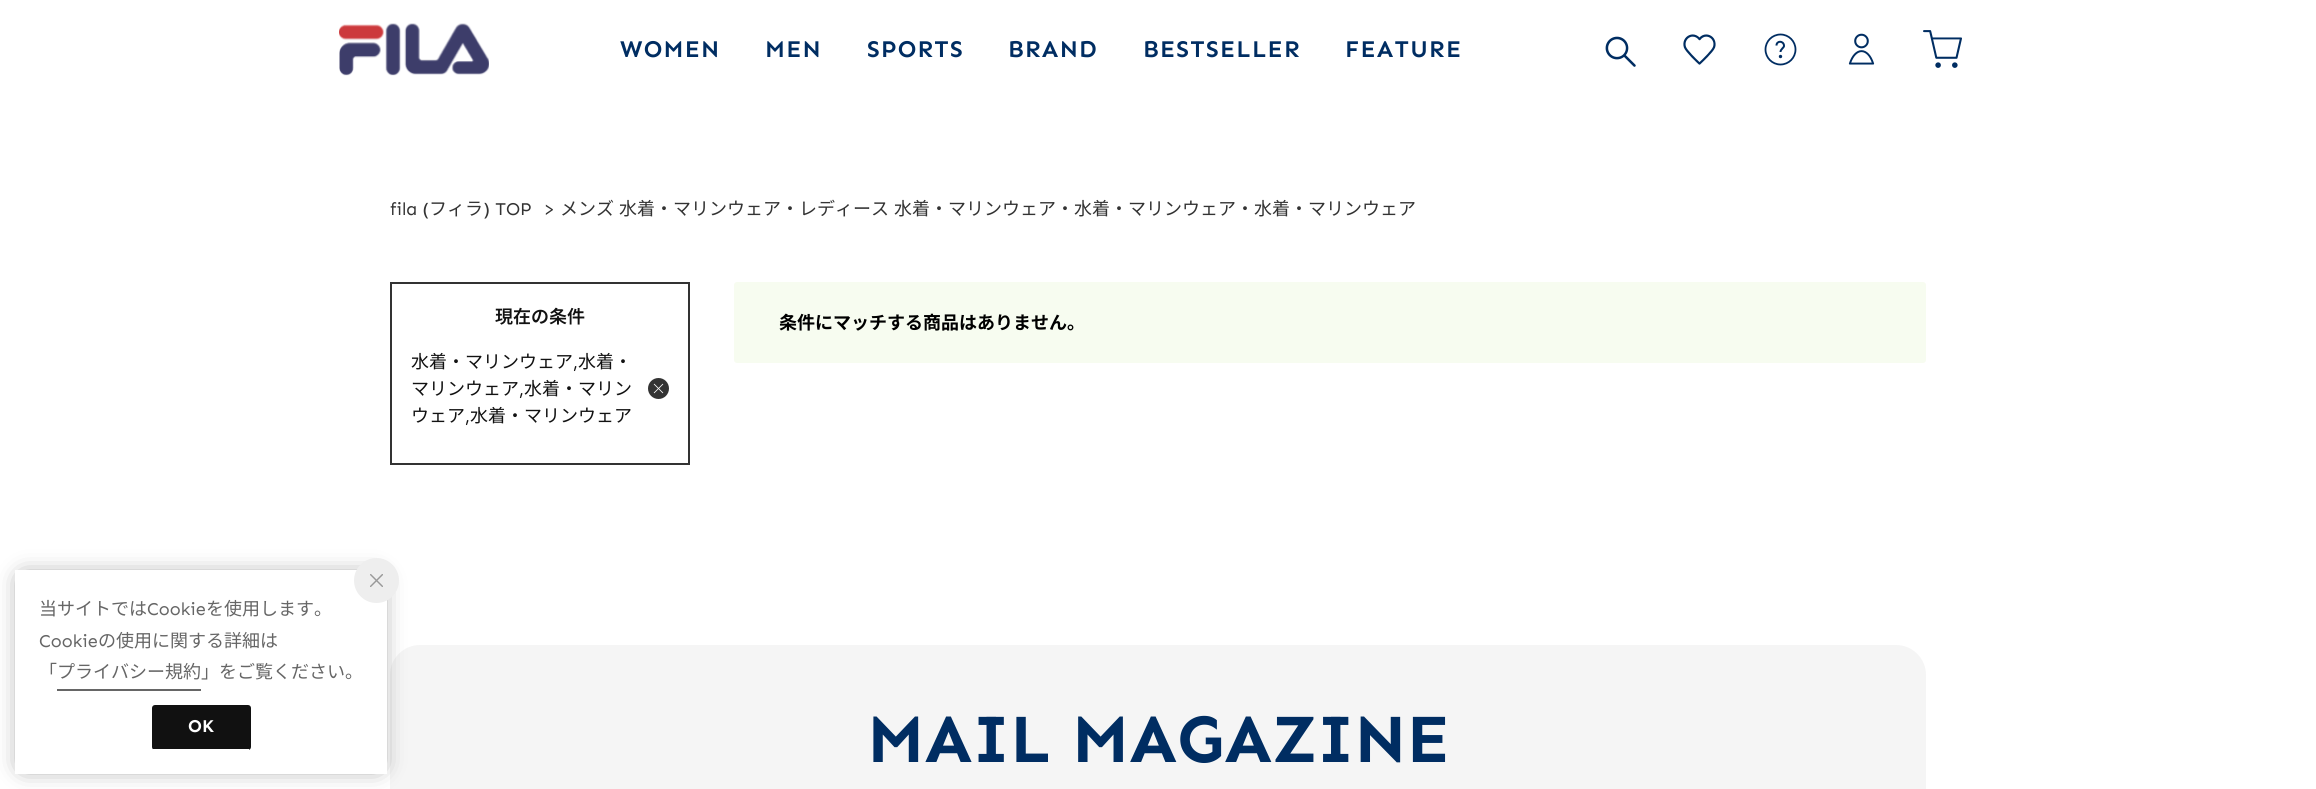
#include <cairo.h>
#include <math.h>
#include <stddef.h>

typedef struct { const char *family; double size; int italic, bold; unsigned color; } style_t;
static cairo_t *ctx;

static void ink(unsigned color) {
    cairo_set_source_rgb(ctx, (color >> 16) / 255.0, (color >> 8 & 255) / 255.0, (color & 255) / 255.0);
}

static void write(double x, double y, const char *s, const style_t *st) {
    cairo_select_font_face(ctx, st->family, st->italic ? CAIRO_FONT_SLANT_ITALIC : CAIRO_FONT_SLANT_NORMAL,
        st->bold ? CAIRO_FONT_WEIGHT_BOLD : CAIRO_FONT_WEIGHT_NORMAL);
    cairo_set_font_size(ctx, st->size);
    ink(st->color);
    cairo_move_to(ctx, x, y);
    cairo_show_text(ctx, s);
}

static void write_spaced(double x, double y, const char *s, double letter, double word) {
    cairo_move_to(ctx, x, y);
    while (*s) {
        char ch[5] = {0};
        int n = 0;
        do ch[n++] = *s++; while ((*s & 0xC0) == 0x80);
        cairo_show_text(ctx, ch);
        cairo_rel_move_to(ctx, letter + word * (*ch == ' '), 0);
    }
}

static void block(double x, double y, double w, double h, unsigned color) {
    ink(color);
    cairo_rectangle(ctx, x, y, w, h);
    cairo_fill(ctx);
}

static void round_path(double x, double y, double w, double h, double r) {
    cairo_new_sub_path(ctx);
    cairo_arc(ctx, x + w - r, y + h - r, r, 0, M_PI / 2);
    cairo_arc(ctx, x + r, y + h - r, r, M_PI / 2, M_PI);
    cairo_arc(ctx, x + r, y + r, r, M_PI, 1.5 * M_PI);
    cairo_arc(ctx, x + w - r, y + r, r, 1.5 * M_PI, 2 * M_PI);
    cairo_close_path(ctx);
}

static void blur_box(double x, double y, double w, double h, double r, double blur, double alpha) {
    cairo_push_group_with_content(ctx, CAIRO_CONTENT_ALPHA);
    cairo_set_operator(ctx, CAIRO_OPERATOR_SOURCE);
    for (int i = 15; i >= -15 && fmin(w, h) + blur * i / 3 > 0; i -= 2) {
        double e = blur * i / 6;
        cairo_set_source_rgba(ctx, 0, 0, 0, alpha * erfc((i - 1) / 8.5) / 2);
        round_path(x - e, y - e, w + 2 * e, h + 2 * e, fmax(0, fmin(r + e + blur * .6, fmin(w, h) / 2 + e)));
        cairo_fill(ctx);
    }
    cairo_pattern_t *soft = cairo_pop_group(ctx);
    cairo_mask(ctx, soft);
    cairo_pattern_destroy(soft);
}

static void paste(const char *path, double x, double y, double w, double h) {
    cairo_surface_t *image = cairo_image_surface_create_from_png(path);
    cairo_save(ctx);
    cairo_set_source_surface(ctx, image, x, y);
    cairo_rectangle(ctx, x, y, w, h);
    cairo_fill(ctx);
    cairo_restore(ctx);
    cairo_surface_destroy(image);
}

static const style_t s1 = {"Sen", 18, 0, 0, 0x333333};
static const style_t s2 = {"Noto Sans JP", 18, 0, 0, 0x333333};
static const style_t s3 = {"Noto Sans JP SemiBold", 18, 0, 0, 0x121212};
static const style_t s4 = {"Noto Sans JP", 18, 0, 0, 0x121212};
static const style_t s5 = {"Sen", 18, 0, 0, 0x121212};
static const style_t s6 = {"Noto Sans JP", 18, 0, 1, 0x000000};
static const style_t s7 = {"Noto Sans JP", 18, 0, 0, 0x666666};
static const style_t s8 = {"Sen", 18, 0, 0, 0x666666};
static const style_t s9 = {"Sen", 18, 0, 1, 0xffffff};
static const style_t s10 = {"Sen", 69, 0, 1, 0x002d62};

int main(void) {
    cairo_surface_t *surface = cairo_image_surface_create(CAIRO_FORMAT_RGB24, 2316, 789);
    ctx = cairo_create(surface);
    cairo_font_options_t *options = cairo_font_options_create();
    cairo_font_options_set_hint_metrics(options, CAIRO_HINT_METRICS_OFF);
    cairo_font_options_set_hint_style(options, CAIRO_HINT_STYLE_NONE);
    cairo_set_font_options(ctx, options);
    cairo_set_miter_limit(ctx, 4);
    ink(0xffffff);
    cairo_paint(ctx);
    paste("pic1.png", 339, 23, 150, 53);
    cairo_select_font_face(ctx, "Sen SemiBold", CAIRO_FONT_SLANT_NORMAL, CAIRO_FONT_WEIGHT_NORMAL);
    cairo_set_font_size(ctx, 24);
    ink(0x002d62);
    write_spaced(620, 57, "WOMEN", 1.25, 0);
    write_spaced(765, 57, "MEN", 1.25, 0);
    write_spaced(867, 57, "SPORTS", 1.25, 0);
    write_spaced(1008, 57, "BRAND", 1.25, 0);
    write_spaced(1143, 57, "BESTSELLER", 1.25, 0);
    write_spaced(1345, 57, "FEATURE", 1.25, 0);
    paste("pic2.png", 1605, 36, 31, 31);
    paste("pic3.png", 1683, 34, 33, 31);
    cairo_arc(ctx, 1780.5, 49.5, 15, 0, 2 * M_PI);
    cairo_set_line_width(ctx, 1.8);
    cairo_stroke(ctx);
    cairo_new_path(ctx);
    cairo_move_to(ctx, 1776.5, 45.5);
    cairo_curve_to(ctx, 1776.5, 40.5, 1783.5, 40.5, 1784, 45.5);
    cairo_curve_to(ctx, 1784.5, 47.5, 1780.5, 49, 1780.5, 52);
    cairo_set_line_width(ctx, 2);
    cairo_stroke(ctx);
    cairo_arc(ctx, 1780.5, 56.5, 1.7, 0, 2 * M_PI);
    cairo_fill(ctx);
    paste("pic4.png", 1848, 33, 27, 32);
    paste("pic5.png", 1923, 30, 39, 38);
    write(390, 215, "fila (", &s1);
    write(429, 215, "フィラ", &s2);
    write(483, 215, ") TOP", &s1);
    write(544, 215, ">", &s1);
    cairo_select_font_face(ctx, "Noto Sans JP", CAIRO_FONT_SLANT_NORMAL, CAIRO_FONT_WEIGHT_NORMAL);
    write_spaced(560, 215, "メンズ 水着・マリンウェア・レディース 水着・マリンウェア・水着・マリンウェア・水着・マリンウェア", 0, 1);
    cairo_rectangle(ctx, 391, 283, 298, 181);
    cairo_stroke(ctx);
    write(495, 323, "現在の条件", &s3);
    write(411, 368, "水着・マリンウェア", &s4);
    write(573, 368, ",", &s5);
    write(578, 368, "水着・", &s4);
    write(411, 395, "マリンウェア", &s4);
    write(519, 395, ",", &s5);
    write(524, 395, "水着・マリン", &s4);
    write(411, 422, "ウェア", &s4);
    write(465, 422, ",", &s5);
    write(470, 422, "水着・マリンウェア", &s4);
    ink(0x333333);
    cairo_new_path(ctx);
    cairo_arc(ctx, 658.5, 388.5, 10.5, 0, 2 * M_PI);
    cairo_fill(ctx);
    paste("pic6.png", 653, 383, 11, 11);
    ink(0xf7fcf0);
    round_path(734, 282, 1192, 81, 3);
    cairo_fill(ctx);
    write(779, 329, "条件にマッチする商品はありません。", &s6);
    ink(0xf5f5f5);
    round_path(390, 645, 1536, 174, 30);
    cairo_fill(ctx);
    cairo_save(ctx);
    cairo_set_fill_rule(ctx, CAIRO_FILL_RULE_EVEN_ODD);
    cairo_new_path(ctx);
    cairo_move_to(ctx, 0, 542);
    cairo_line_to(ctx, 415, 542);
    cairo_line_to(ctx, 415, 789);
    cairo_line_to(ctx, 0, 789);
    cairo_close_path(ctx);
    cairo_move_to(ctx, 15, 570);
    cairo_line_to(ctx, 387, 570);
    cairo_line_to(ctx, 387, 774);
    cairo_line_to(ctx, 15, 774);
    cairo_close_path(ctx);
    cairo_clip(ctx);
    ink(0x000000);
    blur_box(24, 579, 354, 186, 0, 12, 0.6);
    cairo_restore(ctx);
    ink(0xeeeeee);
    cairo_arc(ctx, 376.5, 580.5, 22.5, 0, 2 * M_PI);
    cairo_fill(ctx);
    paste("pic7.png", 370, 574, 13, 13);
    write(39, 615, "当サイトでは", &s7);
    write(147, 615, "Cookie", &s8);
    write(206, 615, "を使用します。", &s7);
    write(39, 647, "Cookie", &s8);
    write(98, 647, "の使用に関する詳細は", &s7);
    write(39, 678, "「プライバシー規約」をご覧ください。", &s7);
    block(57, 689, 144, 2, 0x666666);
    ink(0x111111);
    round_path(152, 705, 99, 45, 3);
    cairo_fill(ctx);
    block(153, 749, 96, 1, 0xffffff);
    write(188, 732, "OK", &s9);
    write(867, 762, "MAIL MAGAZINE", &s10);
    cairo_surface_write_to_png(surface, "screenshot.png");
    cairo_font_options_destroy(options);
    cairo_destroy(ctx);
    cairo_surface_destroy(surface);
    return 0;
}
